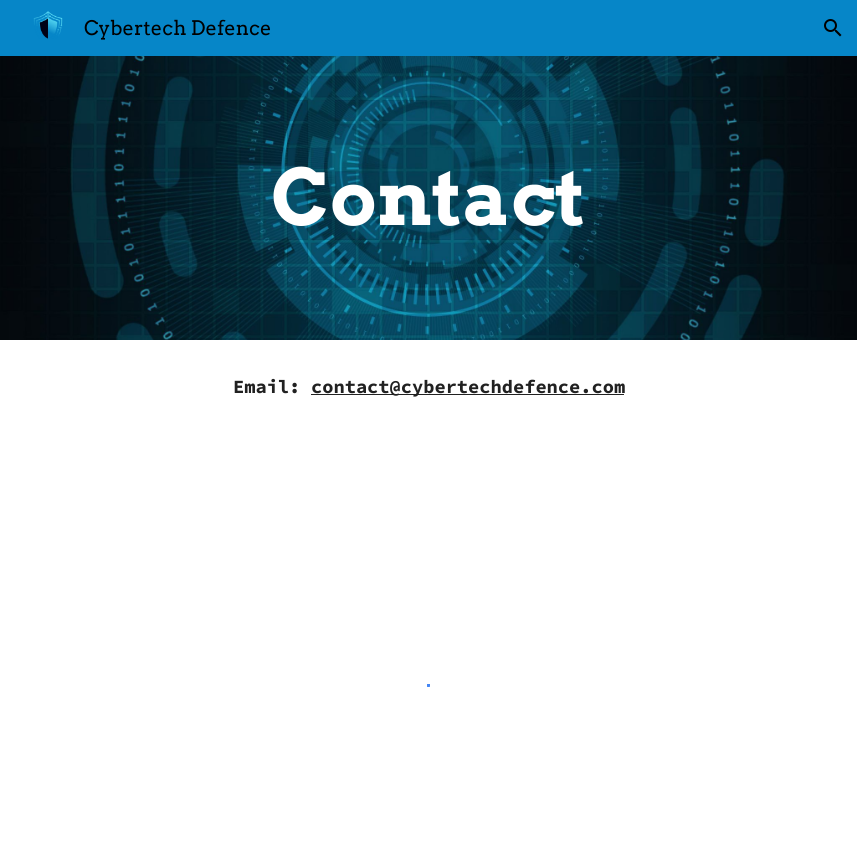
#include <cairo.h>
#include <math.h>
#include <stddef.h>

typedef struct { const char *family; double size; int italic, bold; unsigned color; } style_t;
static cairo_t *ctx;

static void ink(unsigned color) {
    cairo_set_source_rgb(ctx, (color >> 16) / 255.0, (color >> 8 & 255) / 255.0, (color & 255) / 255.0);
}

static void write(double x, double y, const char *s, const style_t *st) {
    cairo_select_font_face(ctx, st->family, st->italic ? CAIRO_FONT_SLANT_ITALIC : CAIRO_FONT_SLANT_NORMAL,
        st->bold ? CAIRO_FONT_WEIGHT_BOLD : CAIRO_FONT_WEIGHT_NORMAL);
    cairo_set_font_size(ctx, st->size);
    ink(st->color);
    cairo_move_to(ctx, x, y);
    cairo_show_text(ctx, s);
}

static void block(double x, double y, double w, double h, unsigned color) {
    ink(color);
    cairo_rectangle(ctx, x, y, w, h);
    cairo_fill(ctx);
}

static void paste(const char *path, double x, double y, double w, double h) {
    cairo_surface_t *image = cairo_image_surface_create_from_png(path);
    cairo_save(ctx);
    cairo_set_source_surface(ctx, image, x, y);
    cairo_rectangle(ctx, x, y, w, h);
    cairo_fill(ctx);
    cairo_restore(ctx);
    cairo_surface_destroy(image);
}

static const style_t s1 = {"Arvo", 20, 0, 0, 0x000000};
static const style_t s2 = {"Arvo", 77.5, 0, 1, 0xffffff};
static const style_t s3 = {"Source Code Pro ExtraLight", 18.7, 0, 1, 0x212121};

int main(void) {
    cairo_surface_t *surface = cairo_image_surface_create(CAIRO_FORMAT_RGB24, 857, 867);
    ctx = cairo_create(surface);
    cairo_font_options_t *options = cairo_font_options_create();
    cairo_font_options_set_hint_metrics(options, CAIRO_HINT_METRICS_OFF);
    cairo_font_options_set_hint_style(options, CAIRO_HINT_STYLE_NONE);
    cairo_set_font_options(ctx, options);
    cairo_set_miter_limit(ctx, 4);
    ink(0xffffff);
    cairo_paint(ctx);
    block(0, 0, 857, 56, 0x0686c8);
    paste("pic1.png", 33, 11, 30, 28);
    write(84, 35, "Cybertech Defence", &s1);
    paste("pic2.png", 824, 19, 18, 18);
    paste("pic3.png", 0, 56, 857, 284);
    write(271, 225, "Contact", &s2);
    write(233, 393, "Email:", &s3);
    block(311, 394, 313, 1, 0x212121);
    write(311, 393, "contact@cybertechdefence.com", &s3);
    cairo_save(ctx);
    cairo_rectangle(ctx, 415, 684, 14, 28);
    cairo_clip(ctx);
    cairo_new_path(ctx);
    cairo_move_to(ctx, 427.5, 685.5);
    cairo_curve_to(ctx, 444, 684, 446, 708.5, 429.5, 710);
    ink(0x4486f4);
    cairo_set_line_width(ctx, 3);
    cairo_stroke(ctx);
    cairo_restore(ctx);
    cairo_save(ctx);
    cairo_rectangle(ctx, 427, 684, 3, 28);
    cairo_clip(ctx);
    cairo_new_path(ctx);
    cairo_move_to(ctx, 420, 707);
    cairo_curve_to(ctx, 417, 704, 416, 699.5, 416.5, 695.5);
    cairo_curve_to(ctx, 417.5, 692.5, 419, 689.5, 422, 687.5);
    cairo_curve_to(ctx, 434, 679, 447, 696.5, 437, 707);
    ink(0x4486f4);
    cairo_set_line_width(ctx, 3);
    cairo_stroke(ctx);
    cairo_restore(ctx);
    cairo_save(ctx);
    cairo_rectangle(ctx, 429, 684, 14, 28);
    cairo_clip(ctx);
    cairo_new_path(ctx);
    cairo_move_to(ctx, 427.5, 710);
    cairo_curve_to(ctx, 411, 708.5, 413, 684, 429.5, 685.5);
    ink(0x4486f4);
    cairo_set_line_width(ctx, 3);
    cairo_stroke(ctx);
    cairo_restore(ctx);
    cairo_save(ctx);
    cairo_rectangle(ctx, 415, 684, 14, 28);
    cairo_clip(ctx);
    cairo_new_path(ctx);
    cairo_move_to(ctx, 427.5, 685.5);
    cairo_curve_to(ctx, 444, 684, 446, 708.5, 429.5, 710);
    cairo_move_to(ctx, 427.5, 685.5);
    cairo_curve_to(ctx, 444, 684, 446, 708.5, 429.5, 710);
    ink(0x4486f4);
    cairo_set_line_width(ctx, 3);
    cairo_stroke(ctx);
    cairo_restore(ctx);
    cairo_surface_write_to_png(surface, "screenshot.png");
    cairo_font_options_destroy(options);
    cairo_destroy(ctx);
    cairo_surface_destroy(surface);
    return 0;
}
